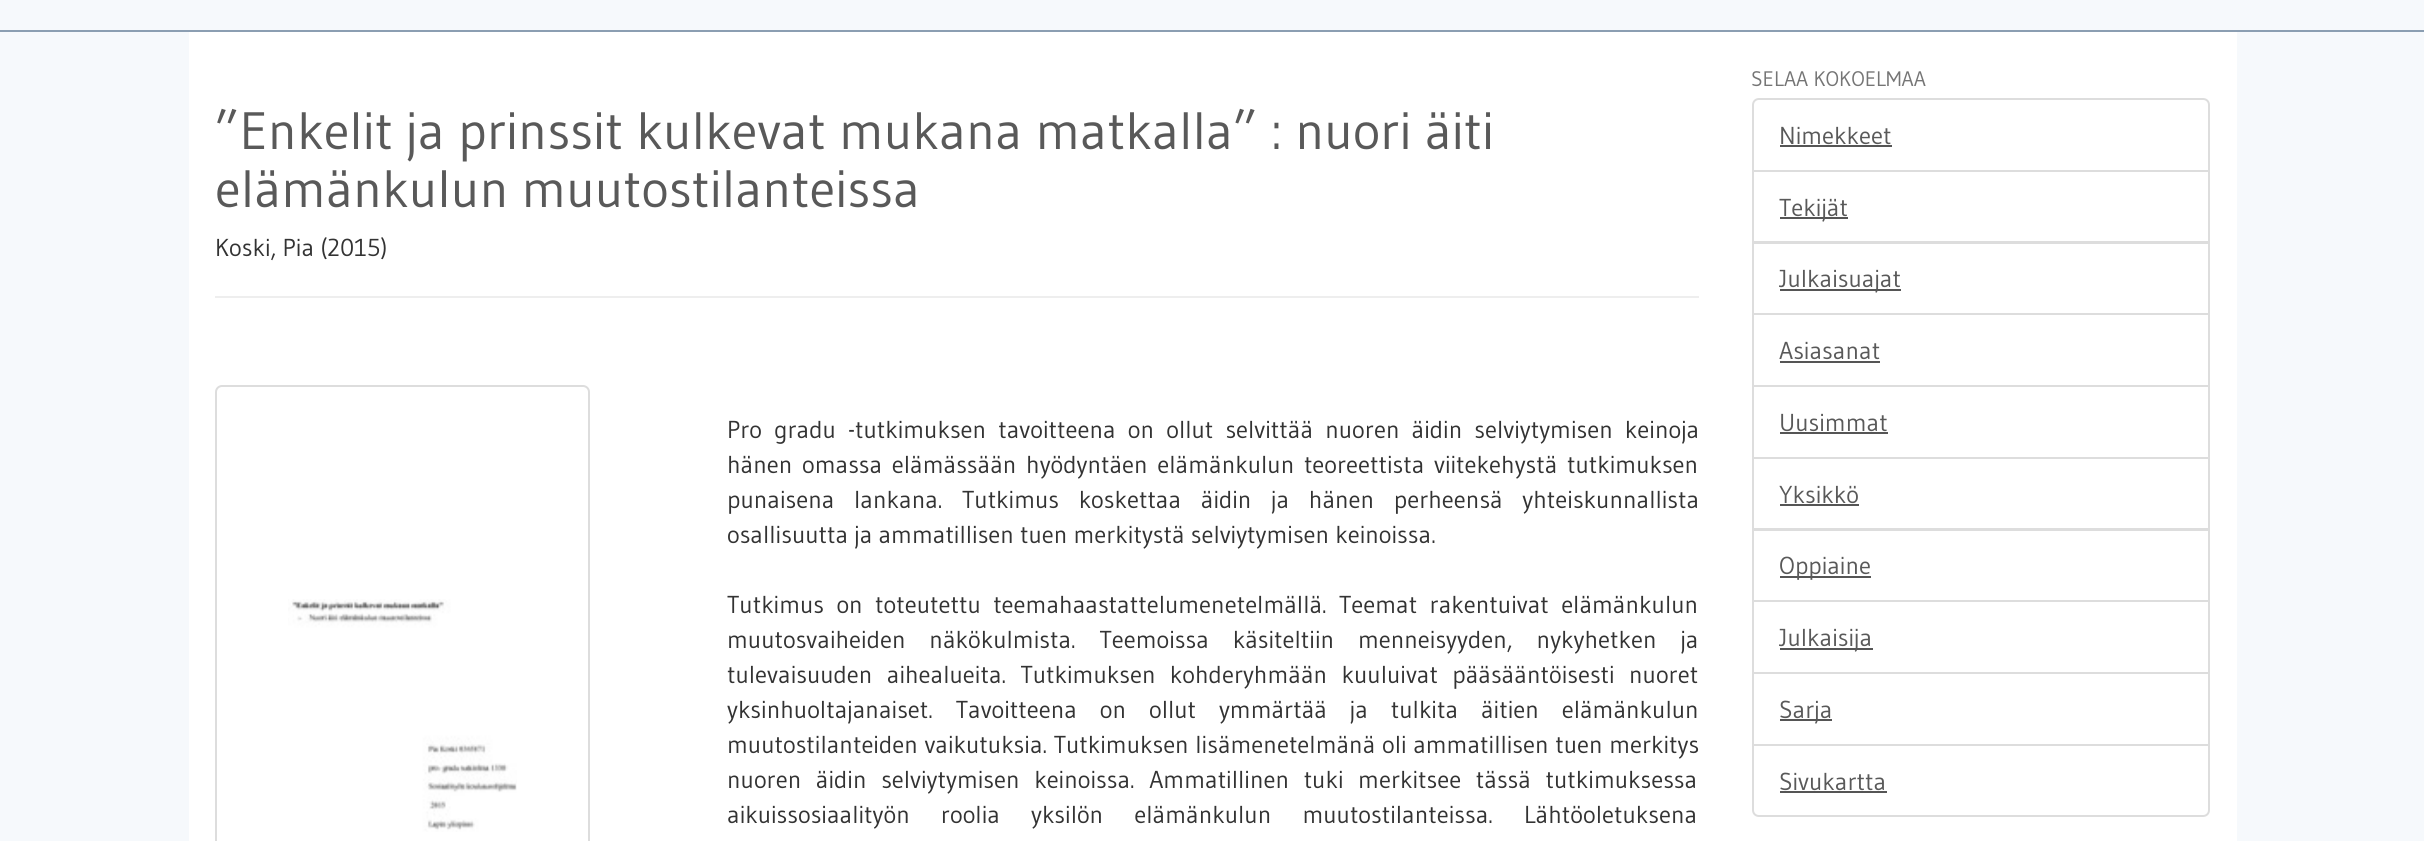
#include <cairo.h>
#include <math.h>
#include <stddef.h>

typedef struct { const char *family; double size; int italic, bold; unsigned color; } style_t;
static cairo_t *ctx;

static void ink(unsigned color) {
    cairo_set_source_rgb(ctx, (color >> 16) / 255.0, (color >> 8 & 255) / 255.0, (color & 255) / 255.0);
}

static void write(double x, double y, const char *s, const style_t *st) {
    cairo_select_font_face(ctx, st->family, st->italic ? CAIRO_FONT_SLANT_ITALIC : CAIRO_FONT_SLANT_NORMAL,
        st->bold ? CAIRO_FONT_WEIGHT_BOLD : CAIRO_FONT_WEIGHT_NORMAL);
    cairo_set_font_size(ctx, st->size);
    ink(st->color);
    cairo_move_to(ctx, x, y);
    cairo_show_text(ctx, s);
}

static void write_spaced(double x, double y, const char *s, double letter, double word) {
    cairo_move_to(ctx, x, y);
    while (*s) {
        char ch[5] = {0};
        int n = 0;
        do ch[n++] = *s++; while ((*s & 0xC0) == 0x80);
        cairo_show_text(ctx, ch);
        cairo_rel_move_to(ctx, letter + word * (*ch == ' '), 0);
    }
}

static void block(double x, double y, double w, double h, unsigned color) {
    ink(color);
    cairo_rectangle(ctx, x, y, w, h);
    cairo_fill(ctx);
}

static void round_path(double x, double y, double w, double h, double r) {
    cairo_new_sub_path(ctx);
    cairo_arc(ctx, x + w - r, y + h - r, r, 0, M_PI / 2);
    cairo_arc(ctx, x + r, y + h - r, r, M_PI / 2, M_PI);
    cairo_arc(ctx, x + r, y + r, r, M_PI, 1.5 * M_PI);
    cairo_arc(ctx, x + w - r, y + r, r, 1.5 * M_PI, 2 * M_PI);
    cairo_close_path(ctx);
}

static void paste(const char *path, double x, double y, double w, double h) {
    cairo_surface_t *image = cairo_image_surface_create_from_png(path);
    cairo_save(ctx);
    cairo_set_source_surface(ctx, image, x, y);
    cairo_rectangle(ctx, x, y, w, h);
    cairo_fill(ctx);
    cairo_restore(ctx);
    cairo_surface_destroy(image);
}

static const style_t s1 = {"Gudea", 52.5, 0, 0, 0x595959};
static const style_t s2 = {"Gudea", 24.5, 0, 0, 0x333333};
static const style_t s3 = {"Gudea", 21, 0, 0, 0x757575};
static const style_t s4 = {"Gudea", 24.5, 0, 0, 0x595959};

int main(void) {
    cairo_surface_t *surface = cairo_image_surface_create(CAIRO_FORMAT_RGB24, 2424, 841);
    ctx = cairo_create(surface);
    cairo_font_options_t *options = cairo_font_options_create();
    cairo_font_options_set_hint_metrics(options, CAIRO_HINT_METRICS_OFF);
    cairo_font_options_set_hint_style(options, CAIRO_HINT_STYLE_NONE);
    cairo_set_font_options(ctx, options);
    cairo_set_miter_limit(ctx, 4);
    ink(0xf6f9fc);
    cairo_paint(ctx);
    block(0, 30, 2424, 2, 0x8b9eb2);
    block(189, 32, 2048, 809, 0xffffff);
    write(215, 149, "”Enkelit ja prinssit kulkevat mukana matkalla” : nuori äiti", &s1);
    write(215, 207, "elämänkulun muutostilanteissa", &s1);
    write(215, 256, "Koski, Pia (2015)", &s2);
    block(215, 296, 1484, 2, 0xeeeeee);
    round_path(216, 386, 373, 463, 6);
    ink(0xdddddd);
    cairo_stroke(ctx);
    paste("pic1.png", 288, 599, 229, 233);
    ink(0x333333);
    write_spaced(727, 438, "Pro gradu -tutkimuksen tavoitteena on ollut selvittää nuoren äidin selviytymisen keinoja", 0, 6);
    write_spaced(727, 473, "hänen omassa elämässään hyödyntäen elämänkulun teoreettista viitekehystä tutkimuksen", 0, 3.5);
    write_spaced(727, 508, "punaisena lankana. Tutkimus koskettaa äidin ja hänen perheensä yhteiskunnallista", 0, 13.5);
    write(727, 543, "osallisuutta ja ammatillisen tuen merkitystä selviytymisen keinoissa.", &s2);
    write_spaced(727, 613, "Tutkimus on toteutettu teemahaastattelumenetelmällä. Teemat rakentuivat elämänkulun", 0, 6.25);
    write_spaced(727, 648, "muutosvaiheiden näkökulmista. Teemoissa käsiteltiin menneisyyden, nykyhetken ja", 0, 17.75);
    write_spaced(727, 683, "tulevaisuuden aihealueita. Tutkimuksen kohderyhmään kuuluivat pääsääntöisesti nuoret", 0, 8.25);
    write_spaced(727, 718, "yksinhuoltajanaiset. Tavoitteena on ollut ymmärtää ja tulkita äitien elämänkulun", 0, 16.75);
    write_spaced(727, 753, "muutostilanteiden vaikutuksia. Tutkimuksen lisämenetelmänä oli ammatillisen tuen merkitys", 0, 0.5);
    write_spaced(727, 788, "nuoren äidin selviytymisen keinoissa. Ammatillinen tuki merkitsee tässä tutkimuksessa", 0, 8.5);
    write_spaced(727, 823, "aikuissosiaalityön roolia yksilön elämänkulun muutostilanteissa. Lähtöoletuksena", 0, 25);
    write(1751, 86, "SELAA KOKOELMAA", &s3);
    cairo_new_path(ctx);
    cairo_move_to(ctx, 1759, 99);
    cairo_line_to(ctx, 2203, 99);
    cairo_curve_to(ctx, 2206.5, 99, 2209, 101.5, 2209, 105);
    cairo_line_to(ctx, 2209, 171);
    cairo_line_to(ctx, 1753, 171);
    cairo_line_to(ctx, 1753, 105);
    cairo_curve_to(ctx, 1753, 101.5, 1755.5, 99, 1759, 99);
    cairo_close_path(ctx);
    ink(0xdddddd);
    cairo_stroke(ctx);
    write(1779, 144, "Nimekkeet", &s4);
    block(1780, 145, 112, 2, 0x555555);
    cairo_rectangle(ctx, 1753, 171, 456, 71);
    ink(0xdddddd);
    cairo_stroke(ctx);
    block(1780, 217, 68, 2, 0x555555);
    write(1779, 216, "Tekijät", &s4);
    cairo_rectangle(ctx, 1753, 243, 456, 71);
    ink(0xdddddd);
    cairo_stroke(ctx);
    block(1780, 289, 121, 2, 0x555555);
    write(1779, 287, "Julkaisuajat", &s4);
    cairo_rectangle(ctx, 1753, 314, 456, 72);
    ink(0xdddddd);
    cairo_stroke(ctx);
    write(1779, 359, "Asiasanat", &s4);
    block(1780, 361, 100, 2, 0x555555);
    cairo_rectangle(ctx, 1753, 386, 456, 72);
    ink(0xdddddd);
    cairo_stroke(ctx);
    write(1779, 431, "Uusimmat", &s4);
    block(1780, 432, 108, 2, 0x555555);
    cairo_rectangle(ctx, 1753, 458, 456, 71);
    ink(0xdddddd);
    cairo_stroke(ctx);
    write(1779, 503, "Yksikkö", &s4);
    block(1780, 504, 79, 2, 0x555555);
    cairo_rectangle(ctx, 1753, 530, 456, 71);
    ink(0xdddddd);
    cairo_stroke(ctx);
    block(1780, 576, 91, 2, 0x555555);
    write(1779, 574, "Oppiaine", &s4);
    cairo_rectangle(ctx, 1753, 601, 456, 72);
    ink(0xdddddd);
    cairo_stroke(ctx);
    block(1780, 648, 93, 2, 0x555555);
    write(1779, 646, "Julkaisija", &s4);
    cairo_rectangle(ctx, 1753, 673, 456, 72);
    ink(0xdddddd);
    cairo_stroke(ctx);
    block(1780, 719, 52, 2, 0x555555);
    write(1779, 718, "Sarja", &s4);
    ink(0xffffff);
    cairo_new_path(ctx);
    cairo_move_to(ctx, 1753, 745);
    cairo_line_to(ctx, 2209, 745);
    cairo_line_to(ctx, 2209, 810);
    cairo_curve_to(ctx, 2209, 813.5, 2206.5, 816, 2203, 816);
    cairo_line_to(ctx, 1759, 816);
    cairo_curve_to(ctx, 1755.5, 816, 1753, 813.5, 1753, 810);
    cairo_close_path(ctx);
    cairo_fill_preserve(ctx);
    ink(0xdddddd);
    cairo_stroke(ctx);
    write(1779, 790, "Sivukartta", &s4);
    block(1780, 791, 107, 2, 0x555555);
    cairo_surface_write_to_png(surface, "screenshot.png");
    cairo_font_options_destroy(options);
    cairo_destroy(ctx);
    cairo_surface_destroy(surface);
    return 0;
}
